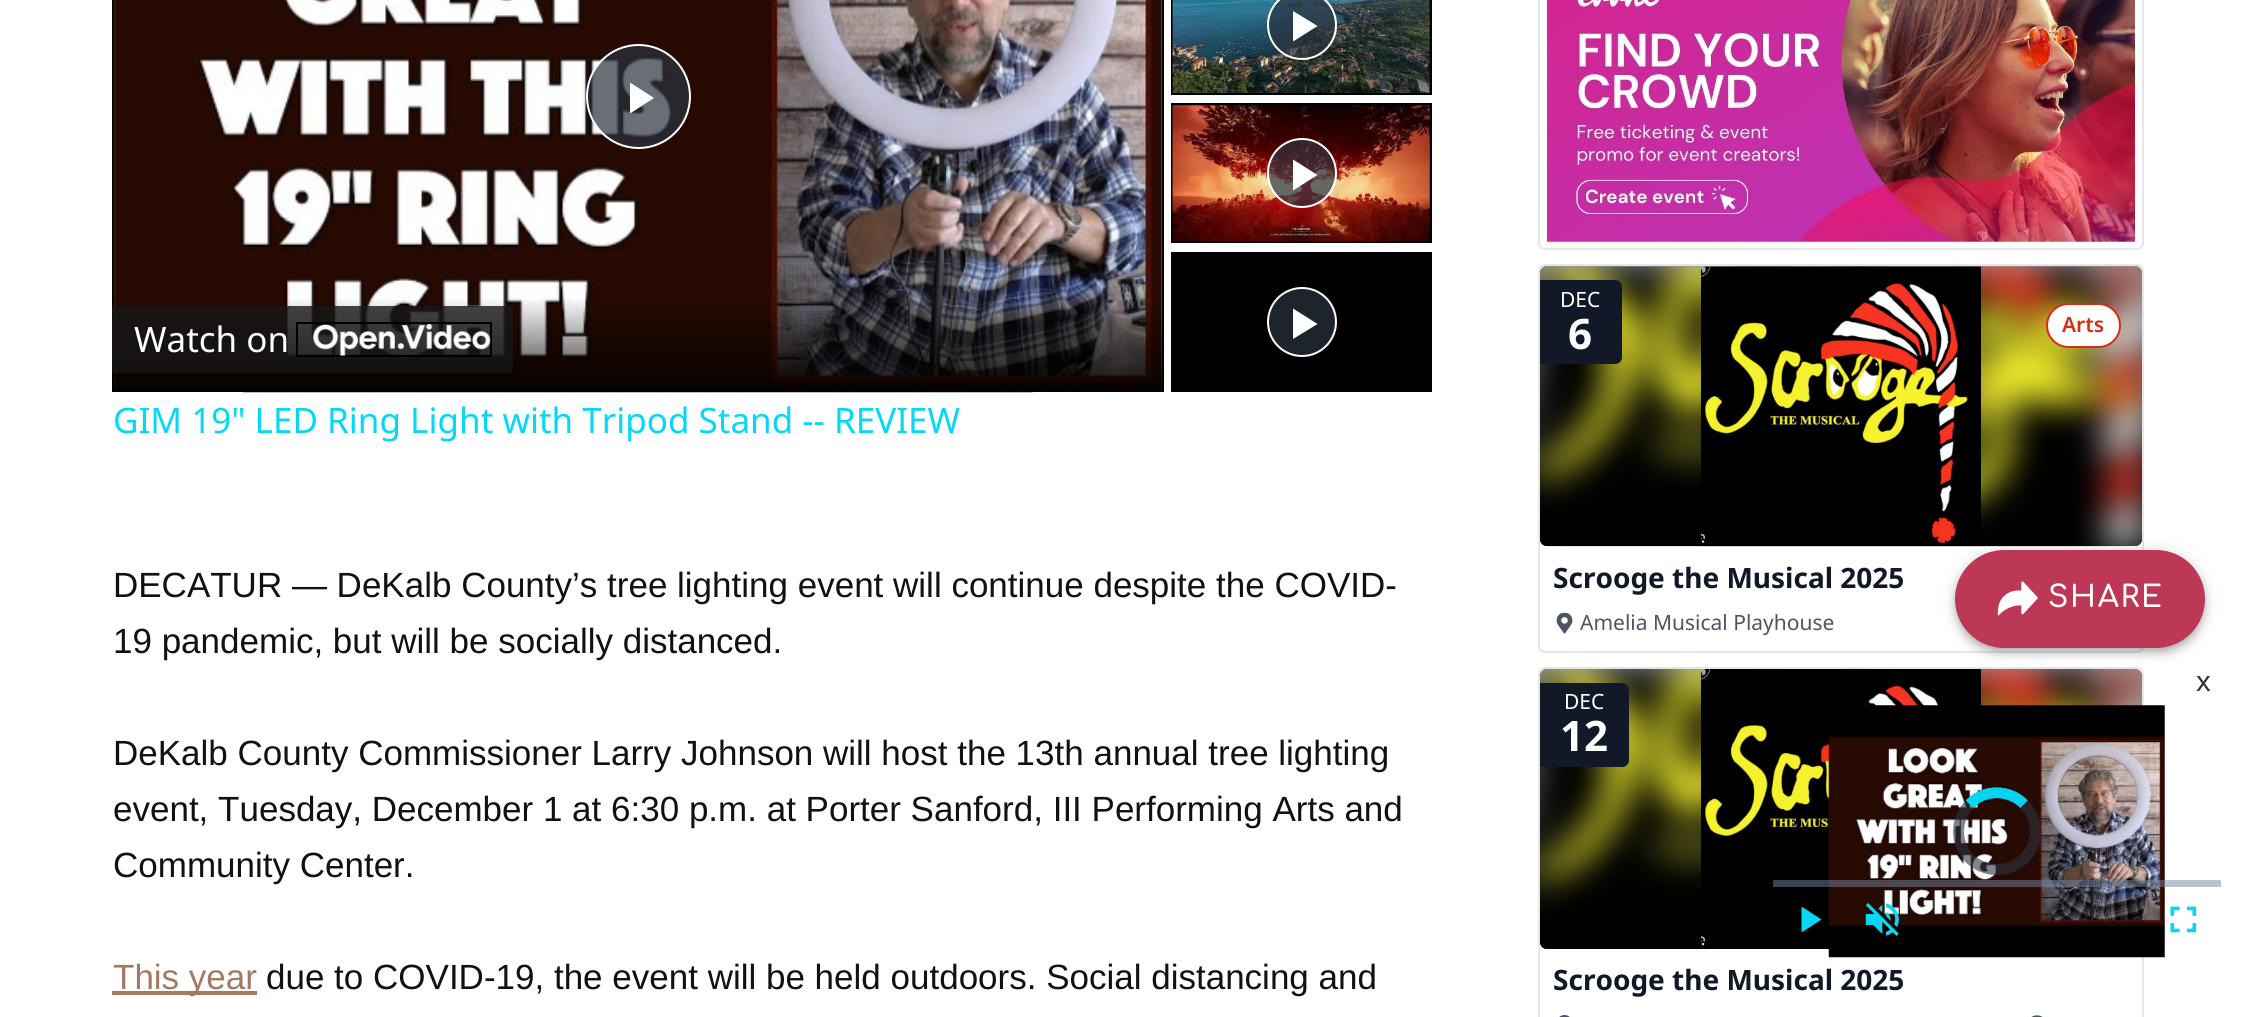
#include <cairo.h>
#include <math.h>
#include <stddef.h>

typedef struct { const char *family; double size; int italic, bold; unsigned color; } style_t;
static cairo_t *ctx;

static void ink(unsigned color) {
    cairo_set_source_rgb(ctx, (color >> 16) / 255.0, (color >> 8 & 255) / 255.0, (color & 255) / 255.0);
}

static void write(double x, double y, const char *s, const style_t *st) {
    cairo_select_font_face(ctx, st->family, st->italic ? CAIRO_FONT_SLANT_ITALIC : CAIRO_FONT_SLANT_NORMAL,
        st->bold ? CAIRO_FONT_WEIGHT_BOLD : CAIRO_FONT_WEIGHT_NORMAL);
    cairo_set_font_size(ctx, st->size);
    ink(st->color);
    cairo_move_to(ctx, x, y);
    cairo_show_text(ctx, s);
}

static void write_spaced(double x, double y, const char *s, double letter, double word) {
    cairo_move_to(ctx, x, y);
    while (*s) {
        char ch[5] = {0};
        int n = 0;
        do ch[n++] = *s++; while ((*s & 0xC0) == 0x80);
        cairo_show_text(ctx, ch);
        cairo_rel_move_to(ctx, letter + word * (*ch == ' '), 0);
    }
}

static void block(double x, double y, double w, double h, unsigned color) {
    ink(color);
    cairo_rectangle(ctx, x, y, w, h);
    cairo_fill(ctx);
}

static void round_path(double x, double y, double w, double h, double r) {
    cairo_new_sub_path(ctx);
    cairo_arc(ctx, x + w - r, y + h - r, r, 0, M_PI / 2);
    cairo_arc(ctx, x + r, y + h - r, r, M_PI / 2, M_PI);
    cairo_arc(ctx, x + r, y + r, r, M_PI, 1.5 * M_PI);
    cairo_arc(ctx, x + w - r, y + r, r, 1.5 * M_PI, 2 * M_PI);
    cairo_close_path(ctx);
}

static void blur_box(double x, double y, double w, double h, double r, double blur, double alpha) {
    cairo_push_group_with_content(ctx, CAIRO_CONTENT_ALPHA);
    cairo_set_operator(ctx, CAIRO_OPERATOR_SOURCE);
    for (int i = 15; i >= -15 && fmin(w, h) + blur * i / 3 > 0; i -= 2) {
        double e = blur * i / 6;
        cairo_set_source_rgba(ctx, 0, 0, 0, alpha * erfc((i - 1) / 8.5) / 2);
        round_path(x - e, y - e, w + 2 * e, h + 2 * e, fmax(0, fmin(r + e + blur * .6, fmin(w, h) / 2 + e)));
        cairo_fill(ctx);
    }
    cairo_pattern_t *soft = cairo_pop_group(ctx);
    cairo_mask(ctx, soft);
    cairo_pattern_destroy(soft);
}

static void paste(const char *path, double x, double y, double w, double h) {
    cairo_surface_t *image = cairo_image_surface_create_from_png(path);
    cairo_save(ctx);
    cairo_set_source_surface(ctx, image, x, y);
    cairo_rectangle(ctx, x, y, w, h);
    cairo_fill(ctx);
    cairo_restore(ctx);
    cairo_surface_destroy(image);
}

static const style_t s1 = {"Noto Sans", 21, 0, 0, 0xffffff};
static const style_t s2 = {"Noto Sans", 42, 0, 1, 0xffffff};
static const style_t s3 = {"Noto Sans SemiBold", 21, 0, 0, 0xd52e16};
static const style_t s4 = {"Noto Sans", 28, 0, 1, 0x111827};
static const style_t s5 = {"Noto Sans", 21, 0, 0, 0x4b5563};
static const style_t s6 = {"Noto Sans", 35, 0, 0, 0xffffff};
static const style_t s7 = {"Noto Sans", 28, 0, 0, 0x333333};
static const style_t s8 = {"Noto Sans", 35, 0, 0, 0x05d8f3};
static const style_t s9 = {"Liberation Sans", 35, 0, 0, 0x111111};
static const style_t s10 = {"Liberation Sans", 35, 0, 0, 0xa47864};

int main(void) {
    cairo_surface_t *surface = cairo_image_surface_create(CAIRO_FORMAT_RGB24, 2255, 1017);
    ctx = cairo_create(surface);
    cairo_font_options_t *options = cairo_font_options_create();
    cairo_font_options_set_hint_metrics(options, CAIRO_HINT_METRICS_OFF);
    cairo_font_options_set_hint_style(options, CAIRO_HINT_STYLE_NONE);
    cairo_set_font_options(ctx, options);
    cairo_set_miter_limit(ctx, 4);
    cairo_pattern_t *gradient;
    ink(0xffffff);
    cairo_paint(ctx);
    round_path(1539, -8, 604, 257, 6);
    ink(0xe5e7eb);
    cairo_stroke(ctx);
    paste("pic1.png", 1547, 0, 588, 242);
    round_path(1539, 265, 604, 387, 6);
    cairo_stroke(ctx);
    ink(0x000000);
    round_path(1540, 266, 602, 280, 7);
    cairo_fill(ctx);
    gradient = cairo_pattern_create_linear(1841, 266, 1841, 546);
    cairo_pattern_add_color_stop_rgba(gradient, 0, 1, 1, 1, 0.6);
    cairo_pattern_add_color_stop_rgba(gradient, 0.6, 0.157, 0.157, 0.157, 0.8);
    cairo_pattern_add_color_stop_rgba(gradient, 0.9, 0, 0, 0, 1);
    cairo_set_source(ctx, gradient);
    cairo_pattern_destroy(gradient);
    round_path(1540, 266, 602, 280, 7);
    cairo_fill(ctx);
    paste("pic2.png", 1540, 266, 602, 281);
    paste("pic3.png", 1700, 266, 281, 281);
    ink(0x111827);
    cairo_new_path(ctx);
    cairo_move_to(ctx, 1540, 280);
    cairo_line_to(ctx, 1615, 280);
    cairo_curve_to(ctx, 1619, 280, 1622, 283, 1622, 287);
    cairo_line_to(ctx, 1622, 357);
    cairo_curve_to(ctx, 1622, 361, 1619, 364, 1615, 364);
    cairo_line_to(ctx, 1540, 364);
    cairo_close_path(ctx);
    cairo_fill(ctx);
    write(1560, 307, "DEC", &s1);
    write(1568, 349, "6", &s2);
    round_path(2047, 304, 73, 43, 21.5);
    cairo_fill_preserve(ctx);
    ink(0xd52e16);
    cairo_stroke(ctx);
    write(2062, 332, "Arts", &s3);
    write(1553, 588, "Scrooge the Musical 2025", &s4);
    paste("pic4.png", 1556, 613, 17, 21);
    write(1580, 630, "Amelia Musical Playhouse", &s5);
    round_path(1539, 668, 604, 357, 6);
    ink(0xe5e7eb);
    cairo_stroke(ctx);
    ink(0x000000);
    round_path(1540, 669, 602, 280, 7);
    cairo_fill(ctx);
    gradient = cairo_pattern_create_linear(1841, 669, 1841, 949);
    cairo_pattern_add_color_stop_rgba(gradient, 0, 1, 1, 1, 0.6);
    cairo_pattern_add_color_stop_rgba(gradient, 0.6, 0.157, 0.157, 0.157, 0.8);
    cairo_pattern_add_color_stop_rgba(gradient, 0.9, 0, 0, 0, 1);
    cairo_set_source(ctx, gradient);
    cairo_pattern_destroy(gradient);
    round_path(1540, 669, 602, 280, 7);
    cairo_fill(ctx);
    paste("pic5.png", 1540, 668, 602, 281);
    paste("pic6.png", 1700, 669, 281, 277);
    ink(0x111827);
    cairo_new_path(ctx);
    cairo_move_to(ctx, 1540, 683);
    cairo_line_to(ctx, 1622, 683);
    cairo_curve_to(ctx, 1626, 683, 1629, 686, 1629, 690);
    cairo_line_to(ctx, 1629, 760);
    cairo_curve_to(ctx, 1629, 764, 1626, 767, 1622, 767);
    cairo_line_to(ctx, 1540, 767);
    cairo_close_path(ctx);
    cairo_fill(ctx);
    write(1564, 709, "DEC", &s1);
    write(1560, 751, "12", &s2);
    round_path(2047, 706, 73, 44, 22);
    ink(0xd52e16);
    cairo_stroke(ctx);
    write(1553, 990, "Scrooge the Musical 2025", &s4);
    paste("pic7.png", 1559, 1015, 11, 2);
    paste("pic8.png", 2031, 1015, 12, 2);
    cairo_rectangle(ctx, 113, -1, 1050, 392);
    ink(0x000000);
    cairo_stroke(ctx);
    paste("pic9.png", 113, 0, 1050, 391);
    cairo_set_source_rgba(ctx, 0.169, 0.2, 0.247, 0.7);
    cairo_arc(ctx, 638.5, 96.5, 51.5, 0, 2 * M_PI);
    cairo_fill_preserve(ctx);
    ink(0xffffff);
    cairo_stroke(ctx);
    cairo_new_path(ctx);
    cairo_move_to(ctx, 630, 82.5);
    cairo_line_to(ctx, 630, 113.5);
    cairo_line_to(ctx, 654, 98);
    cairo_close_path(ctx);
    cairo_fill(ctx);
    paste("pic10.png", 243, 392, 790, 1);
    gradient = cairo_pattern_create_linear(638, -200, 638, 392);
    cairo_pattern_add_color_stop_rgba(gradient, 0, 0, 0, 0, 0.6);
    cairo_pattern_add_color_stop_rgba(gradient, 0.16, 0, 0, 0, 0);
    cairo_pattern_add_color_stop_rgba(gradient, 0.84, 0, 0, 0, 0);
    cairo_pattern_add_color_stop_rgba(gradient, 1, 0, 0, 0, 0.8);
    cairo_set_source(ctx, gradient);
    cairo_pattern_destroy(gradient);
    cairo_rectangle(ctx, 113, 300, 1050, 91);
    cairo_fill(ctx);
    cairo_set_source_rgba(ctx, 0.09, 0.09, 0.09, 0.8);
    cairo_new_path(ctx);
    cairo_move_to(ctx, 112, 306);
    cairo_line_to(ctx, 509, 306);
    cairo_curve_to(ctx, 511, 306, 513, 308, 513, 310);
    cairo_line_to(ctx, 513, 369);
    cairo_curve_to(ctx, 513, 371, 511, 373, 509, 373);
    cairo_line_to(ctx, 112, 373);
    cairo_close_path(ctx);
    cairo_fill(ctx);
    write(134, 352, "Watch on", &s6);
    cairo_rectangle(ctx, 297, 323, 194, 33);
    ink(0x000000);
    cairo_stroke(ctx);
    paste("pic11.png", 312, 323, 179, 33);
    block(1171, 0, 261, 95, 0x000000);
    paste("pic12.png", 1172, 0, 258, 93);
    cairo_set_source_rgba(ctx, 0.169, 0.2, 0.247, 0.7);
    cairo_arc(ctx, 1302, 25, 34, 0, 2 * M_PI);
    cairo_fill_preserve(ctx);
    ink(0xffffff);
    cairo_stroke(ctx);
    cairo_new_path(ctx);
    cairo_move_to(ctx, 1293, 11);
    cairo_line_to(ctx, 1293, 41.5);
    cairo_line_to(ctx, 1317.5, 26);
    cairo_close_path(ctx);
    cairo_fill(ctx);
    block(1171, 103, 261, 140, 0x000000);
    paste("pic13.png", 1172, 105, 258, 137);
    cairo_set_source_rgba(ctx, 0.169, 0.2, 0.247, 0.7);
    cairo_arc(ctx, 1302, 173, 34, 0, 2 * M_PI);
    cairo_fill_preserve(ctx);
    ink(0xffffff);
    cairo_stroke(ctx);
    cairo_new_path(ctx);
    cairo_move_to(ctx, 1293, 159.5);
    cairo_line_to(ctx, 1293, 190.5);
    cairo_line_to(ctx, 1317.5, 175);
    cairo_close_path(ctx);
    cairo_fill(ctx);
    block(1171, 252, 261, 140, 0x000000);
    ink(0x1e242c);
    cairo_arc(ctx, 1302, 322, 34, 0, 2 * M_PI);
    cairo_fill_preserve(ctx);
    ink(0xffffff);
    cairo_stroke(ctx);
    cairo_new_path(ctx);
    cairo_move_to(ctx, 1293, 308.5);
    cairo_line_to(ctx, 1293, 339);
    cairo_line_to(ctx, 1317.5, 324);
    cairo_close_path(ctx);
    cairo_fill(ctx);
    ink(0x000000);
    blur_box(1955, 551, 250, 98, 49, 9, 0.12);
    write(2196, 691, "x", &s7);
    paste("pic14.png", 1828, 705, 337, 253);
    round_path(1958.5, 793.5, 77, 76, 38);
    cairo_set_source_rgba(ctx, 0.169, 0.2, 0.247, 0.59);
    cairo_set_line_width(ctx, 11);
    cairo_stroke(ctx);
    cairo_new_path(ctx);
    cairo_move_to(ctx, 1969.5, 804);
    cairo_curve_to(ctx, 1984.5, 789, 2009, 789, 2024, 804);
    cairo_set_source_rgba(ctx, 0.02, 0.847, 0.953, 0.85);
    cairo_set_line_width(ctx, 10.5);
    cairo_stroke(ctx);
    cairo_new_path(ctx);
    cairo_move_to(ctx, 1969.5, 804);
    cairo_curve_to(ctx, 1984.5, 789, 2009, 789, 2024, 804);
    cairo_stroke(ctx);
    cairo_set_source_rgba(ctx, 0.451, 0.522, 0.624, 0.5);
    cairo_rectangle(ctx, 1773, 880, 448, 7);
    cairo_fill(ctx);
    ink(0x05d8f3);
    cairo_new_path(ctx);
    cairo_move_to(ctx, 1801.5, 906.5);
    cairo_line_to(ctx, 1801.5, 932.5);
    cairo_line_to(ctx, 1821.5, 919.5);
    cairo_close_path(ctx);
    cairo_fill(ctx);
    paste("pic15.png", 1865, 903, 34, 33);
    paste("pic16.png", 2170, 906, 27, 27);
    write(113, 433, "GIM 19\" LED Ring Light with Tripod Stand -- REVIEW", &s8);
    write(113, 597, "DECATUR — DeKalb County’s tree lighting event will continue despite the COVID-", &s9);
    write(113, 653, "19 pandemic, but will be socially distanced.", &s9);
    write(113, 765, "DeKalb County Commissioner Larry Johnson will host the 13th annual tree lighting", &s9);
    write(113, 821, "event, Tuesday, December 1 at 6:30 p.m. at Porter Sanford, III Performing Arts and", &s9);
    write(113, 877, "Community Center.", &s9);
    block(112, 991, 145, 4, 0xa47864);
    write(113, 989, "This year", &s10);
    write(266, 989, "due to COVID-19, the event will be held outdoors. Social distancing and", &s9);
    ink(0x000000);
    blur_box(1955, 557, 250, 98, 49, 4.5, 0.14);
    blur_box(1957, 555, 246, 94, 47, 3.5, 0.2);
    ink(0xbd3854);
    round_path(1955, 550, 250, 98, 49);
    cairo_fill(ctx);
    paste("pic17.png", 1997, 581, 41, 35);
    cairo_select_font_face(ctx, "Comfortaa SemiBold", CAIRO_FONT_SLANT_NORMAL, CAIRO_FONT_WEIGHT_NORMAL);
    cairo_set_font_size(ctx, 30);
    ink(0xffffff);
    write_spaced(2048, 607, "SHARE", 1.75, 0);
    cairo_surface_write_to_png(surface, "screenshot.png");
    cairo_font_options_destroy(options);
    cairo_destroy(ctx);
    cairo_surface_destroy(surface);
    return 0;
}
